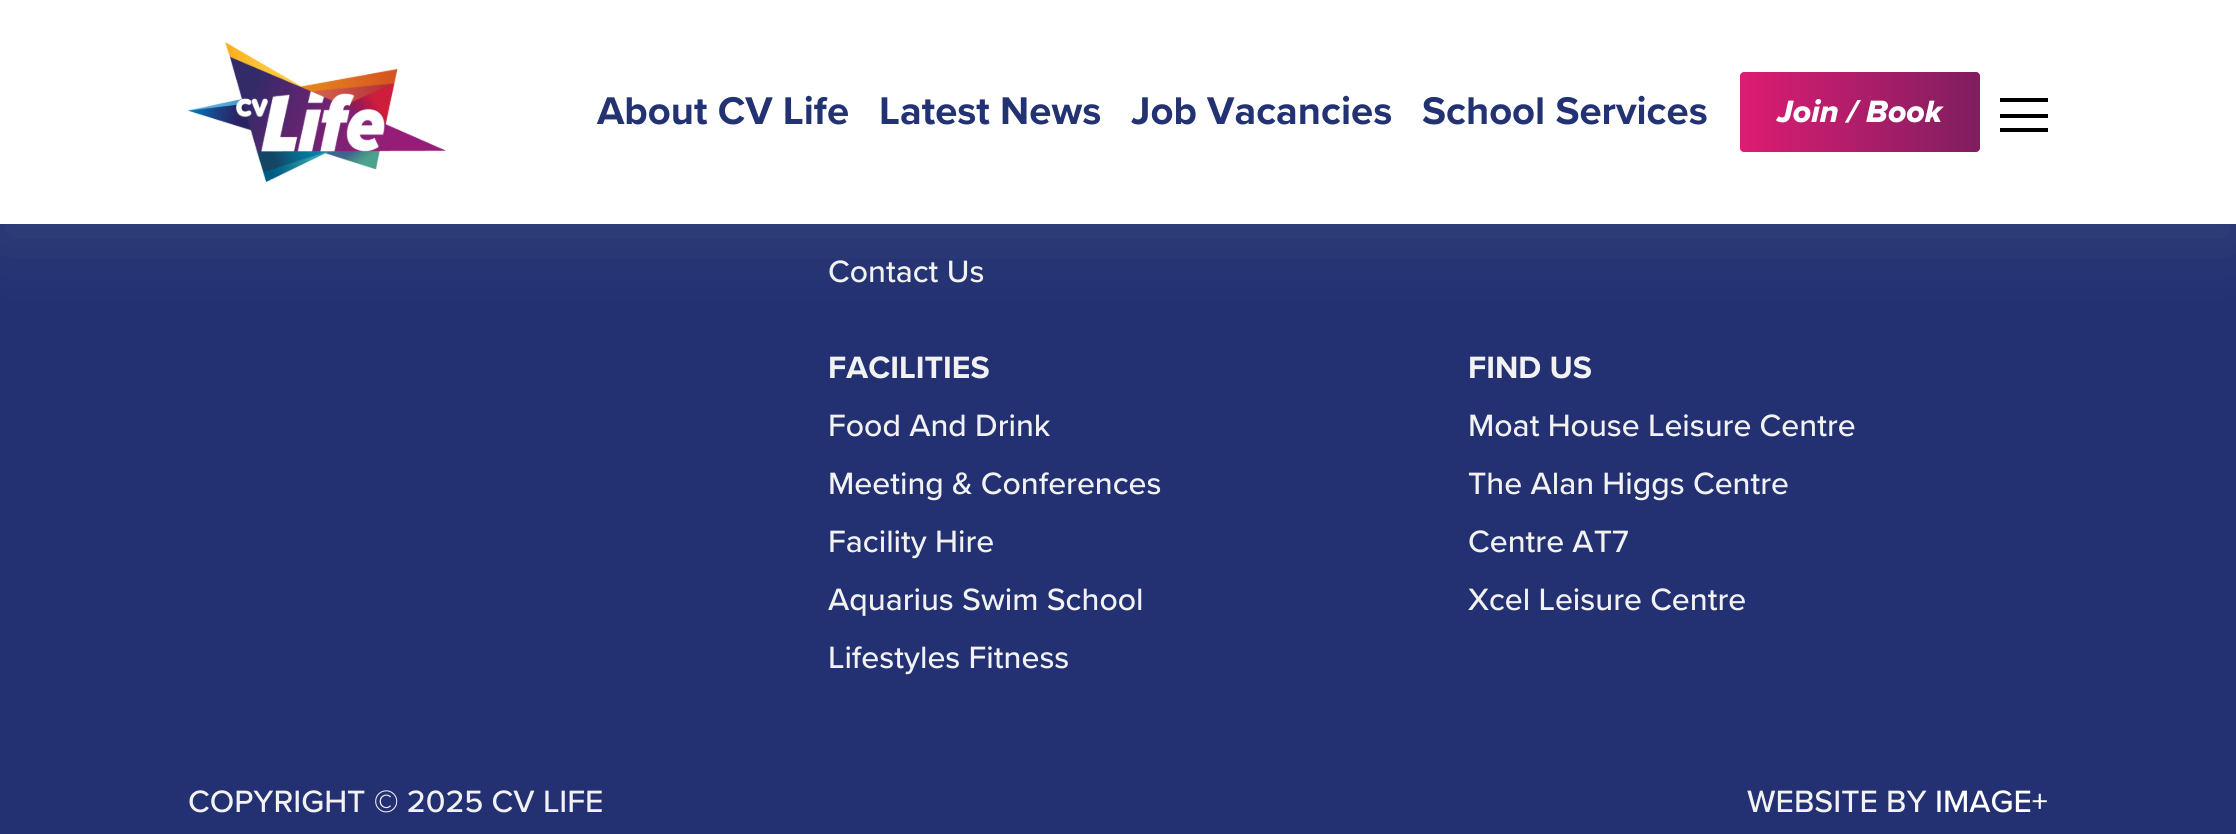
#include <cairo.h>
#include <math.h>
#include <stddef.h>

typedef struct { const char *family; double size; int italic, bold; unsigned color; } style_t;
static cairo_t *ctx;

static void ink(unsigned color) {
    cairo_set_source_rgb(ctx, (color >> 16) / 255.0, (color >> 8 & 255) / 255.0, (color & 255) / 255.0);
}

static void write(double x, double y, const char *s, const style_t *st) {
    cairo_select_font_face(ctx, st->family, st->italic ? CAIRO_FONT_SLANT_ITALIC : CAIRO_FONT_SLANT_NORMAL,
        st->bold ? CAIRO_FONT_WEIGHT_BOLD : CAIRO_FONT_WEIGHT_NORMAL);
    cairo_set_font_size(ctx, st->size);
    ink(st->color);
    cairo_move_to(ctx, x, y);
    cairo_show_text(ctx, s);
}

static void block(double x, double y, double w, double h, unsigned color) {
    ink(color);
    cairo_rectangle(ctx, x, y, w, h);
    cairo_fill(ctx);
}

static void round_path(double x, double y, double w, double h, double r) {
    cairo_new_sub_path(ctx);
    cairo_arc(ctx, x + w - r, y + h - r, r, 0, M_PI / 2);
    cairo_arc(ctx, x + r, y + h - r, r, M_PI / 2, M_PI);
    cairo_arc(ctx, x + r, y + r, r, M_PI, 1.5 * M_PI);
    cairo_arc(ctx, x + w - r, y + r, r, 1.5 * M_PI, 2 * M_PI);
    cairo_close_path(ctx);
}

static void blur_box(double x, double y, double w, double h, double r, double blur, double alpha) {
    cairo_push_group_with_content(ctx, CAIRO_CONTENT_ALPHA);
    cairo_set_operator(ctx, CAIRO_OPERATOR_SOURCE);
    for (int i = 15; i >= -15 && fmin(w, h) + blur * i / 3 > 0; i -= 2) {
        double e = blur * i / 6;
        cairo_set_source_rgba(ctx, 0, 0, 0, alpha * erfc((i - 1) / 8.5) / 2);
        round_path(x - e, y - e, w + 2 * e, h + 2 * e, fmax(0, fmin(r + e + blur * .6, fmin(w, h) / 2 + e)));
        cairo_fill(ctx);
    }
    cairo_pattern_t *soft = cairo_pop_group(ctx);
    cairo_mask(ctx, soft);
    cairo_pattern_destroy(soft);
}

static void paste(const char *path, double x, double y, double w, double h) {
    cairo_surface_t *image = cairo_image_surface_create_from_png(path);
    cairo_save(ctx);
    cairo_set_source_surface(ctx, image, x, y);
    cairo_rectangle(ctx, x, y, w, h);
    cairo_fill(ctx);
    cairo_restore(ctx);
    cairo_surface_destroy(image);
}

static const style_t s1 = {"Proxima Nova", 40, 0, 1, 0x233272};
static const style_t s2 = {"Proxima Nova ExtraBold", 32, 1, 0, 0xffffff};
static const style_t s3 = {"Proxima Nova Medium", 32, 0, 0, 0xf2f2f2};
static const style_t s4 = {"Proxima Nova", 32, 0, 1, 0xf2f2f2};
static const style_t s5 = {"Proxima Nova Medium", 32, 0, 0, 0xffffff};

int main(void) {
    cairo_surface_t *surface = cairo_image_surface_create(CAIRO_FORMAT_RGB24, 2236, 834);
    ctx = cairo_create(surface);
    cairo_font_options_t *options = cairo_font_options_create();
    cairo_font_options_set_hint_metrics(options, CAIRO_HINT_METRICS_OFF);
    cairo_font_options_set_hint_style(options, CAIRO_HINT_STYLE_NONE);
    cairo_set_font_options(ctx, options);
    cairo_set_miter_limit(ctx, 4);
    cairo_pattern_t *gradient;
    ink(0x233172);
    cairo_paint(ctx);
    ink(0x8a9ba5);
    blur_box(0, 20, 2236, 224, 0, 30, 0.15);
    block(0, 0, 2236, 224, 0xffffff);
    paste("pic1.png", 188, 42, 258, 140);
    write(597, 124, "About CV Life", &s1);
    write(879, 124, "Latest News", &s1);
    write(1131, 124, "Job Vacancies", &s1);
    write(1422, 124, "School Services", &s1);
    gradient = cairo_pattern_create_linear(1740, 112, 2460, 112);
    cairo_pattern_add_color_stop_rgba(gradient, 0, 0.867, 0.11, 0.447, 1);
    cairo_pattern_add_color_stop_rgba(gradient, 0.33, 0.502, 0.118, 0.376, 1);
    cairo_pattern_add_color_stop_rgba(gradient, 0.67, 0.263, 0.2, 0.404, 1);
    cairo_pattern_add_color_stop_rgba(gradient, 1, 0.882, 0.149, 0.467, 1);
    cairo_set_source(ctx, gradient);
    cairo_pattern_destroy(gradient);
    round_path(1740, 72, 240, 80, 4);
    cairo_fill(ctx);
    write(1777, 122, "Join / Book", &s2);
    block(2000, 128, 48, 4, 0x000000);
    block(2000, 98, 48, 4, 0x000000);
    block(2000, 114, 48, 4, 0x000000);
    write(828, 282, "Contact Us", &s3);
    write(828, 378, "FACILITIES", &s4);
    write(828, 436, "Food And Drink", &s3);
    write(828, 494, "Meeting & Conferences", &s3);
    write(828, 552, "Facility Hire", &s3);
    write(828, 610, "Aquarius Swim School", &s3);
    write(828, 668, "Lifestyles Fitness", &s3);
    write(1468, 378, "FIND US", &s4);
    write(1468, 436, "Moat House Leisure Centre", &s3);
    write(1468, 494, "The Alan Higgs Centre", &s3);
    write(1468, 552, "Centre AT7", &s3);
    write(1468, 610, "Xcel Leisure Centre", &s3);
    write(188, 812, "COPYRIGHT © 2025 CV LIFE", &s3);
    write(1747, 812, "WEBSITE BY", &s3);
    write(1935, 812, "IMAGE+", &s5);
    cairo_surface_write_to_png(surface, "screenshot.png");
    cairo_font_options_destroy(options);
    cairo_destroy(ctx);
    cairo_surface_destroy(surface);
    return 0;
}
